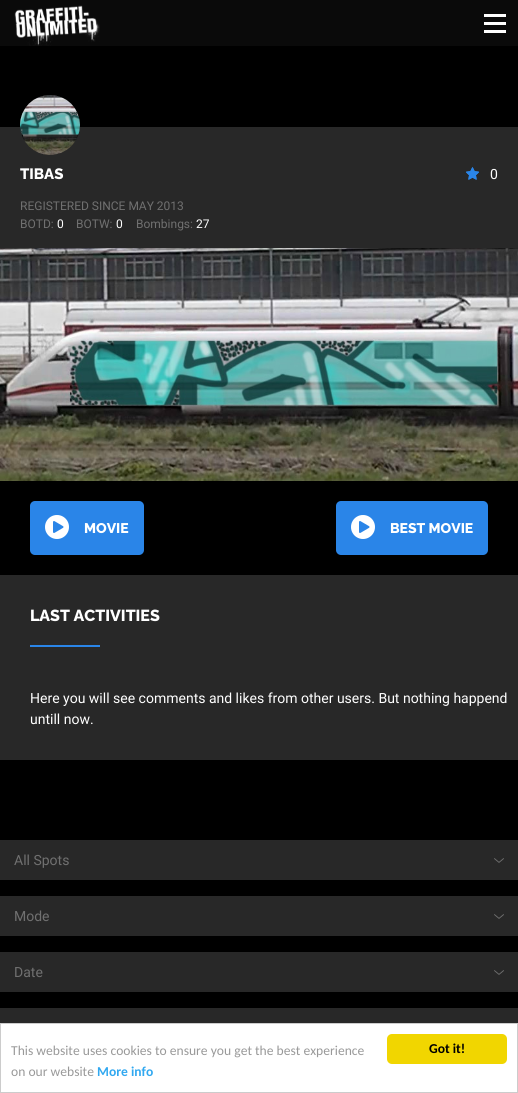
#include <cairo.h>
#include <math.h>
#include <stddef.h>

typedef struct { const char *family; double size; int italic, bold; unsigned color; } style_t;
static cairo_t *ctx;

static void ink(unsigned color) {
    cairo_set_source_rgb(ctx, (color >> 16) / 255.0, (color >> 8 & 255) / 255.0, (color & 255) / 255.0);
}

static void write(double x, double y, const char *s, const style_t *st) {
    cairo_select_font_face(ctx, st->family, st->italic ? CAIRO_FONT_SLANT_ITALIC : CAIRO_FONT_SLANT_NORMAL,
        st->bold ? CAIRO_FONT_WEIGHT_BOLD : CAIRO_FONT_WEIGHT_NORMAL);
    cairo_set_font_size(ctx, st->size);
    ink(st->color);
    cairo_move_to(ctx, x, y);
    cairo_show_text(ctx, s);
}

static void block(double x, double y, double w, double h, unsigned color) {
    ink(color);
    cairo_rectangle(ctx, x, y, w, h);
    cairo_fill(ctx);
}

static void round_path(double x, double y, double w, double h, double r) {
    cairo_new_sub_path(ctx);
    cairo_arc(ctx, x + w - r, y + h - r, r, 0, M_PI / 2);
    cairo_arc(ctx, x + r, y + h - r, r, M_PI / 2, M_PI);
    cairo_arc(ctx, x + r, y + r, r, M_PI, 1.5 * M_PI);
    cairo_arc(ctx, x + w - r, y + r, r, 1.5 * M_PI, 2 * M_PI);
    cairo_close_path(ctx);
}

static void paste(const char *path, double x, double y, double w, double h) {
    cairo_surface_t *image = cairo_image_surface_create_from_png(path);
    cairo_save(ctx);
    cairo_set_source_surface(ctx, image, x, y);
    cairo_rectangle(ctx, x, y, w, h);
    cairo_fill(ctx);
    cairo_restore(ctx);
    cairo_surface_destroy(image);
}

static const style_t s1 = {"Raleway ExtraBold", 15, 0, 0, 0xffffff};
static const style_t s2 = {"Roboto", 14, 0, 0, 0xffffff};
static const style_t s3 = {"Roboto", 12, 0, 0, 0x707070};
static const style_t s4 = {"Roboto", 12, 0, 0, 0xffffff};
static const style_t s5 = {"Raleway ExtraBold", 14, 0, 0, 0xffffff};
static const style_t s6 = {"Raleway ExtraBold", 16, 0, 0, 0xffffff};
static const style_t s7 = {"Roboto", 14, 0, 0, 0x707070};
static const style_t s8 = {"Carlito", 13.6, 0, 0, 0x999999};
static const style_t s9 = {"Carlito", 13.6, 0, 1, 0x31a8f0};
static const style_t s10 = {"Carlito", 13.6, 0, 1, 0x000000};

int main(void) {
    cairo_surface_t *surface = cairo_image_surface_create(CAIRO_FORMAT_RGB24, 518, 1093);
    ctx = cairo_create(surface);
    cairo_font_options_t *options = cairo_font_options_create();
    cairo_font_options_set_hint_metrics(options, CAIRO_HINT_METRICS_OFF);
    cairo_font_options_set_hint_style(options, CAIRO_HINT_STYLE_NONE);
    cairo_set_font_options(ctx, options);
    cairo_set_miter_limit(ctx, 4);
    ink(0x000000);
    cairo_paint(ctx);
    block(0, 0, 518, 46, 0x0a0a0a);
    paste("pic1.png", 14, 5, 86, 41);
    block(484, 22, 22, 3, 0xffffff);
    block(484, 14, 22, 3, 0xffffff);
    block(484, 30, 22, 3, 0xffffff);
    block(0, 127, 518, 121, 0x282828);
    ink(0x1a1a1a);
    cairo_arc(ctx, 50, 125, 30, 0, 2 * M_PI);
    cairo_fill(ctx);
    paste("pic2.png", 20, 95, 60, 60);
    write(20, 179, "TIBAS", &s1);
    paste("pic3.png", 466, 167, 13, 13);
    paste("pic4.png", 466, 167, 13, 13);
    write(490, 179, "0", &s2);
    write(20, 210, "REGISTERED SINCE MAY 2013", &s3);
    write(20, 228, "BOTD:", &s3);
    write(57, 228, "0", &s4);
    write(76, 228, "BOTW:", &s3);
    write(116, 228, "0", &s4);
    write(136, 228, "Bombings:", &s3);
    write(196, 228, "27", &s4);
    paste("pic5.png", 0, 248, 518, 233);
    ink(0x2a85e8);
    round_path(30, 501, 114, 54, 5);
    cairo_fill(ctx);
    paste("pic6.png", 45, 515, 24, 24);
    write(84, 533, "MOVIE", &s5);
    ink(0x2a85e8);
    round_path(336, 501, 152, 54, 5);
    cairo_fill(ctx);
    paste("pic6.png", 351, 515, 24, 24);
    write(390, 533, "BEST MOVIE", &s5);
    block(0, 575, 518, 185, 0x282828);
    write(30, 621, "LAST ACTIVITIES", &s6);
    block(30, 645, 70, 2, 0x2a85e8);
    write(30, 703, "Here you will see comments and likes from other users. But nothing happend", &s2);
    write(30, 724, "untill now.", &s2);
    block(0, 840, 518, 40, 0x282828);
    paste("pic7.png", 494, 858, 10, 5);
    write(14, 865, "All Spots", &s7);
    block(0, 896, 518, 40, 0x282828);
    paste("pic7.png", 494, 914, 10, 5);
    write(14, 921, "Mode", &s7);
    block(0, 952, 518, 40, 0x282828);
    paste("pic7.png", 494, 970, 10, 5);
    write(14, 977, "Date", &s7);
    block(0, 1008, 518, 15, 0x282828);
    ink(0xffffff);
    cairo_rectangle(ctx, 0.5, 1023.5, 517, 69);
    cairo_fill_preserve(ctx);
    ink(0xcccccc);
    cairo_set_line_width(ctx, 1);
    cairo_stroke(ctx);
    write(11, 1055, "This website uses cookies to ensure you get the best experience", &s8);
    write(11, 1076, "on our website", &s8);
    write(97, 1076, "More info", &s9);
    ink(0xf1d600);
    round_path(387, 1034, 120, 30, 5);
    cairo_fill(ctx);
    write(429, 1053, "Got it!", &s10);
    cairo_surface_write_to_png(surface, "screenshot.png");
    cairo_font_options_destroy(options);
    cairo_destroy(ctx);
    cairo_surface_destroy(surface);
    return 0;
}
